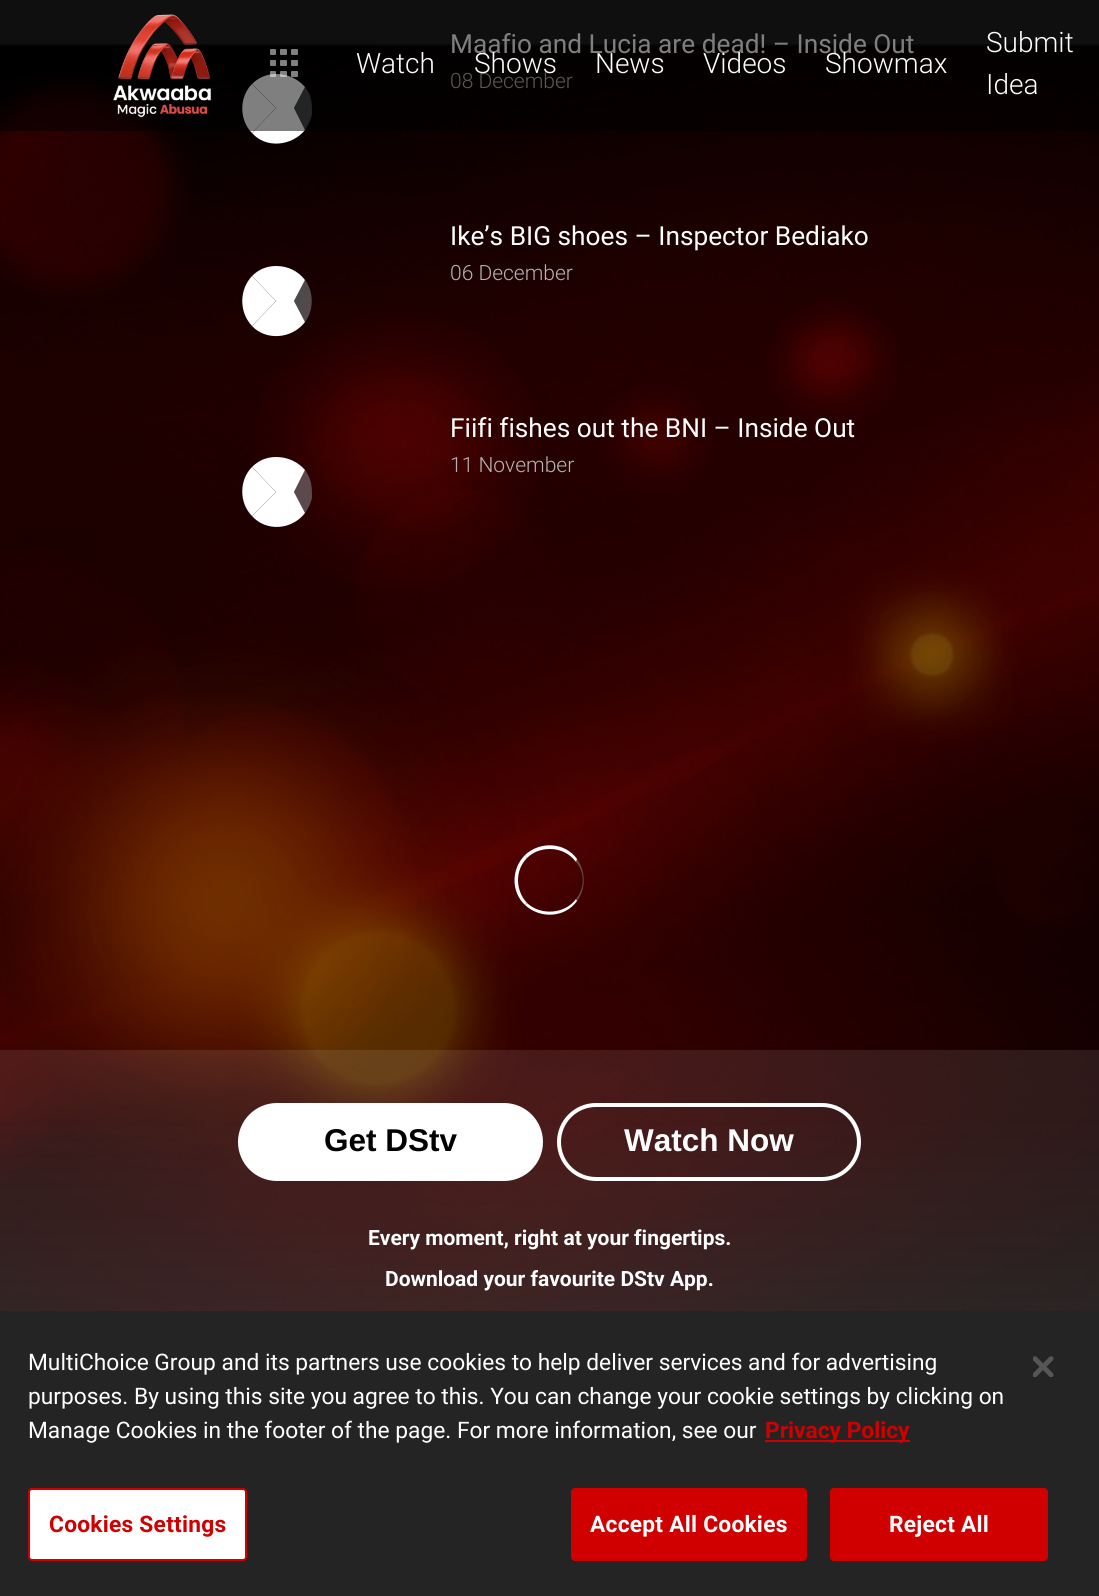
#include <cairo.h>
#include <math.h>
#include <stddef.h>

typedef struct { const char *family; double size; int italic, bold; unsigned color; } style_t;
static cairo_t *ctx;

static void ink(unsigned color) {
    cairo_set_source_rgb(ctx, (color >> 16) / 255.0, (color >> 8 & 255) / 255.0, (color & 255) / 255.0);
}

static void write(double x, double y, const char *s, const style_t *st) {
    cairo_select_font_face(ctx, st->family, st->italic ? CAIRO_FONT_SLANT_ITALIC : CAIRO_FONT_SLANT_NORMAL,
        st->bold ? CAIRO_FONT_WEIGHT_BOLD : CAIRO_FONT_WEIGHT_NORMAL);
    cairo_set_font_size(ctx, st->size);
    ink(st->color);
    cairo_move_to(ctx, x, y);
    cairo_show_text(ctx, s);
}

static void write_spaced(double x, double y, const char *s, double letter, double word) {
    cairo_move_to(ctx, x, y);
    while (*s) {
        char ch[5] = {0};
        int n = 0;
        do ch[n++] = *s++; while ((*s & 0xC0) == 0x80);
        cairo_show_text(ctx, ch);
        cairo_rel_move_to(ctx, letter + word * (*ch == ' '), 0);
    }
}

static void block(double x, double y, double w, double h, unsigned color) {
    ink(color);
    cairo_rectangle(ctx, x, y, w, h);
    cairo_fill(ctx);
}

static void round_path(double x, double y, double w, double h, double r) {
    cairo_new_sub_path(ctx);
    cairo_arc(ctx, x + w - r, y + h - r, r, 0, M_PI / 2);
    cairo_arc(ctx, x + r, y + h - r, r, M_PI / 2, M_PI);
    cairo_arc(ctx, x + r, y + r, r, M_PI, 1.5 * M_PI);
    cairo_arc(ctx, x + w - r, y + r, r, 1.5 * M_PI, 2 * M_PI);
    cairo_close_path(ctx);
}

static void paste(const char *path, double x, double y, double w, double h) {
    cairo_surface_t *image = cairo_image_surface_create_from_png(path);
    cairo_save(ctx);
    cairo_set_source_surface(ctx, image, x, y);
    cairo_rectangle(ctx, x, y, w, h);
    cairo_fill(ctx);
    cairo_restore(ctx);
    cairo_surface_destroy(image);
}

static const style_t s1 = {"Roboto", 26.25, 0, 0, 0xffffff};
static const style_t s2 = {"Roboto Light", 21, 0, 0, 0xb5b3b3};
static const style_t s3 = {"Roboto Light", 28, 0, 0, 0xffffff};
static const style_t s4 = {"Roboto Light", 21, 0, 0, 0xbbb3b3};
static const style_t s5 = {"Liberation Sans", 31.5, 0, 1, 0x000000};
static const style_t s6 = {"Liberation Sans", 31.5, 0, 1, 0xffffff};
static const style_t s7 = {"Roboto", 21, 0, 1, 0xffffff};
static const style_t s8 = {"Roboto", 22.75, 0, 0, 0xffffff};
static const style_t s9 = {"Roboto", 22.75, 0, 1, 0xd10000};

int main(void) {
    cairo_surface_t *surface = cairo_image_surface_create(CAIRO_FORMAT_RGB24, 1099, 1596);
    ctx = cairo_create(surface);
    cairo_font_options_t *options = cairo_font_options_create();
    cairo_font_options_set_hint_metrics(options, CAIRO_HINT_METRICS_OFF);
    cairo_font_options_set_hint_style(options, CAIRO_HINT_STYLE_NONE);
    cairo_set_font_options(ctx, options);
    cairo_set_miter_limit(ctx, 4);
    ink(0x1e1e1e);
    cairo_paint(ctx);
    paste("pic3.png", 0, 44, 1099, 1267);
    write(450, 53, "Maafio and Lucia are dead! – Inside Out", &s1);
    write(450, 88, "08 December", &s2);
    ink(0xffffff);
    cairo_new_path(ctx);
    cairo_move_to(ctx, 276, 74);
    cairo_curve_to(ctx, 266, 74, 258, 78, 252, 84);
    cairo_line_to(ctx, 276, 108);
    cairo_line_to(ctx, 294, 108);
    cairo_line_to(ctx, 305, 87);
    cairo_curve_to(ctx, 298, 79, 288, 74, 276, 74);
    cairo_close_path(ctx);
    cairo_fill(ctx);
    cairo_set_source_rgba(ctx, 0.635, 0.714, 0.749, 0.4);
    cairo_new_path(ctx);
    cairo_move_to(ctx, 312, 114);
    cairo_curve_to(ctx, 311, 120, 308, 125, 305, 130);
    cairo_line_to(ctx, 294, 108);
    cairo_line_to(ctx, 305, 87);
    cairo_curve_to(ctx, 312, 96, 312, 103, 312, 114);
    cairo_close_path(ctx);
    cairo_fill(ctx);
    ink(0xffffff);
    cairo_new_path(ctx);
    cairo_move_to(ctx, 305, 130);
    cairo_line_to(ctx, 294, 108);
    cairo_line_to(ctx, 276, 108);
    cairo_line_to(ctx, 252, 133);
    cairo_curve_to(ctx, 266, 149, 292, 146, 305, 130);
    cairo_close_path(ctx);
    cairo_fill(ctx);
    cairo_new_path(ctx);
    cairo_move_to(ctx, 252, 84);
    cairo_curve_to(ctx, 239, 97, 239, 120, 252, 133);
    cairo_line_to(ctx, 276, 108);
    cairo_close_path(ctx);
    cairo_fill(ctx);
    cairo_set_source_rgba(ctx, 0, 0, 0, 0.5);
    cairo_rectangle(ctx, 0, 0, 1099, 131);
    cairo_fill(ctx);
    paste("pic1.png", 113, 14, 98, 104);
    paste("pic2.png", 270, 49, 28, 28);
    write(356, 73, "Watch", &s3);
    write(474, 73, "Shows", &s3);
    write(595, 73, "News", &s3);
    write(703, 73, "Videos", &s3);
    write(825, 73, "Showmax", &s3);
    write(986, 52, "Submit", &s3);
    write(986, 94, "Idea", &s3);
    write(450, 245, "Ike’s BIG shoes – Inspector Bediako", &s1);
    write(450, 280, "06 December", &s4);
    ink(0xffffff);
    cairo_new_path(ctx);
    cairo_move_to(ctx, 276, 266);
    cairo_curve_to(ctx, 266, 266, 258, 270, 252, 276);
    cairo_line_to(ctx, 276, 301);
    cairo_line_to(ctx, 294, 301);
    cairo_line_to(ctx, 305, 280);
    cairo_curve_to(ctx, 298, 271, 288, 266, 276, 266);
    cairo_close_path(ctx);
    cairo_fill(ctx);
    cairo_set_source_rgba(ctx, 0.635, 0.714, 0.749, 0.4);
    cairo_new_path(ctx);
    cairo_move_to(ctx, 305, 280);
    cairo_line_to(ctx, 294, 301);
    cairo_line_to(ctx, 305, 322);
    cairo_curve_to(ctx, 314, 310, 314, 292, 305, 280);
    cairo_close_path(ctx);
    cairo_fill(ctx);
    ink(0xffffff);
    cairo_new_path(ctx);
    cairo_move_to(ctx, 305, 322);
    cairo_line_to(ctx, 294, 301);
    cairo_line_to(ctx, 276, 301);
    cairo_line_to(ctx, 252, 326);
    cairo_curve_to(ctx, 266, 341, 292, 339, 305, 322);
    cairo_close_path(ctx);
    cairo_fill(ctx);
    cairo_new_path(ctx);
    cairo_move_to(ctx, 252, 276);
    cairo_curve_to(ctx, 239, 290, 239, 312, 252, 326);
    cairo_line_to(ctx, 276, 301);
    cairo_close_path(ctx);
    cairo_fill(ctx);
    write(450, 437, "Fiifi fishes out the BNI – Inside Out", &s1);
    write(450, 472, "11 November", &s4);
    ink(0xffffff);
    cairo_new_path(ctx);
    cairo_move_to(ctx, 276, 457);
    cairo_curve_to(ctx, 266, 457, 258, 461, 252, 467);
    cairo_line_to(ctx, 276, 492);
    cairo_line_to(ctx, 294, 492);
    cairo_line_to(ctx, 305, 470);
    cairo_curve_to(ctx, 298, 462, 288, 457, 276, 457);
    cairo_close_path(ctx);
    cairo_fill(ctx);
    cairo_set_source_rgba(ctx, 0.635, 0.714, 0.749, 0.4);
    cairo_new_path(ctx);
    cairo_move_to(ctx, 312, 498);
    cairo_curve_to(ctx, 311, 503, 308, 509, 305, 513);
    cairo_line_to(ctx, 294, 492);
    cairo_line_to(ctx, 305, 470);
    cairo_curve_to(ctx, 312, 480, 312, 487, 312, 498);
    cairo_close_path(ctx);
    cairo_fill(ctx);
    ink(0xffffff);
    cairo_new_path(ctx);
    cairo_move_to(ctx, 305, 513);
    cairo_line_to(ctx, 294, 492);
    cairo_line_to(ctx, 276, 492);
    cairo_line_to(ctx, 252, 516);
    cairo_curve_to(ctx, 266, 532, 292, 530, 305, 513);
    cairo_close_path(ctx);
    cairo_fill(ctx);
    cairo_new_path(ctx);
    cairo_move_to(ctx, 252, 467);
    cairo_curve_to(ctx, 239, 480, 239, 503, 252, 516);
    cairo_line_to(ctx, 276, 492);
    cairo_close_path(ctx);
    cairo_fill(ctx);
    cairo_new_path(ctx);
    cairo_move_to(ctx, 550, 849);
    cairo_curve_to(ctx, 541, 849, 533, 852, 527, 858);
    cairo_line_to(ctx, 525, 855);
    cairo_curve_to(ctx, 540, 841, 565, 842, 577, 859);
    cairo_line_to(ctx, 576, 862);
    cairo_curve_to(ctx, 570, 854, 561, 849, 550, 849);
    cairo_close_path(ctx);
    cairo_fill(ctx);
    cairo_set_source_rgba(ctx, 0.635, 0.714, 0.749, 0.4);
    cairo_new_path(ctx);
    cairo_move_to(ctx, 577, 859);
    cairo_curve_to(ctx, 586, 872, 586, 889, 577, 901);
    cairo_line_to(ctx, 576, 899);
    cairo_curve_to(ctx, 585, 888, 585, 872, 576, 862);
    cairo_close_path(ctx);
    cairo_fill(ctx);
    ink(0xffffff);
    cairo_new_path(ctx);
    cairo_move_to(ctx, 577, 901);
    cairo_curve_to(ctx, 565, 918, 540, 919, 525, 905);
    cairo_line_to(ctx, 527, 903);
    cairo_curve_to(ctx, 541, 916, 565, 914, 576, 899);
    cairo_close_path(ctx);
    cairo_fill(ctx);
    cairo_new_path(ctx);
    cairo_move_to(ctx, 525, 855);
    cairo_line_to(ctx, 527, 858);
    cairo_curve_to(ctx, 515, 870, 515, 890, 527, 903);
    cairo_line_to(ctx, 525, 905);
    cairo_curve_to(ctx, 511, 892, 511, 869, 525, 855);
    cairo_close_path(ctx);
    cairo_fill(ctx);
    cairo_set_source_rgba(ctx, 1, 1, 1, 0.1);
    cairo_rectangle(ctx, 0, 1050, 1099, 261);
    cairo_fill(ctx);
    ink(0xffffff);
    round_path(240, 1105, 301, 74, 37);
    cairo_fill_preserve(ctx);
    cairo_set_line_width(ctx, 4);
    cairo_stroke(ctx);
    write(324, 1151, "Get DStv", &s5);
    round_path(559, 1105, 300, 74, 37);
    ink(0xffffff);
    cairo_stroke(ctx);
    write(624, 1151, "Watch Now", &s6);
    write(368, 1245, "Every moment, right at your fingertips.", &s7);
    write(385, 1286, "Download your favourite DStv App.", &s7);
    block(0, 1311, 1099, 285, 0x242424);
    write(28, 1370, "MultiChoice Group and its partners use cookies to help deliver services and for advertising", &s8);
    write(28, 1404, "purposes. By using this site you agree to this. You can change your cookie settings by clicking on", &s8);
    write(28, 1438, "Manage Cookies in the footer of the page. For more information, see our", &s8);
    block(765, 1440, 145, 2, 0xd10000);
    write(765, 1438, "Privacy Policy", &s9);
    ink(0xffffff);
    round_path(29, 1489, 217, 71, 3);
    cairo_fill_preserve(ctx);
    ink(0xd10000);
    cairo_set_line_width(ctx, 2);
    cairo_stroke(ctx);
    write_spaced(49, 1532, "Cookies Settings", 0.25, 0);
    round_path(572, 1489, 234, 71, 3);
    cairo_fill_preserve(ctx);
    cairo_stroke(ctx);
    ink(0xffffff);
    write_spaced(590, 1532, "Accept All Cookies", 0.25, 0);
    ink(0xd10000);
    round_path(831, 1489, 216, 71, 3);
    cairo_fill_preserve(ctx);
    cairo_stroke(ctx);
    ink(0xffffff);
    write_spaced(889, 1532, "Reject All", 0.25, 0);
    paste("pic4.png", 1033, 1356, 21, 21);
    cairo_surface_write_to_png(surface, "screenshot.png");
    cairo_font_options_destroy(options);
    cairo_destroy(ctx);
    cairo_surface_destroy(surface);
    return 0;
}
